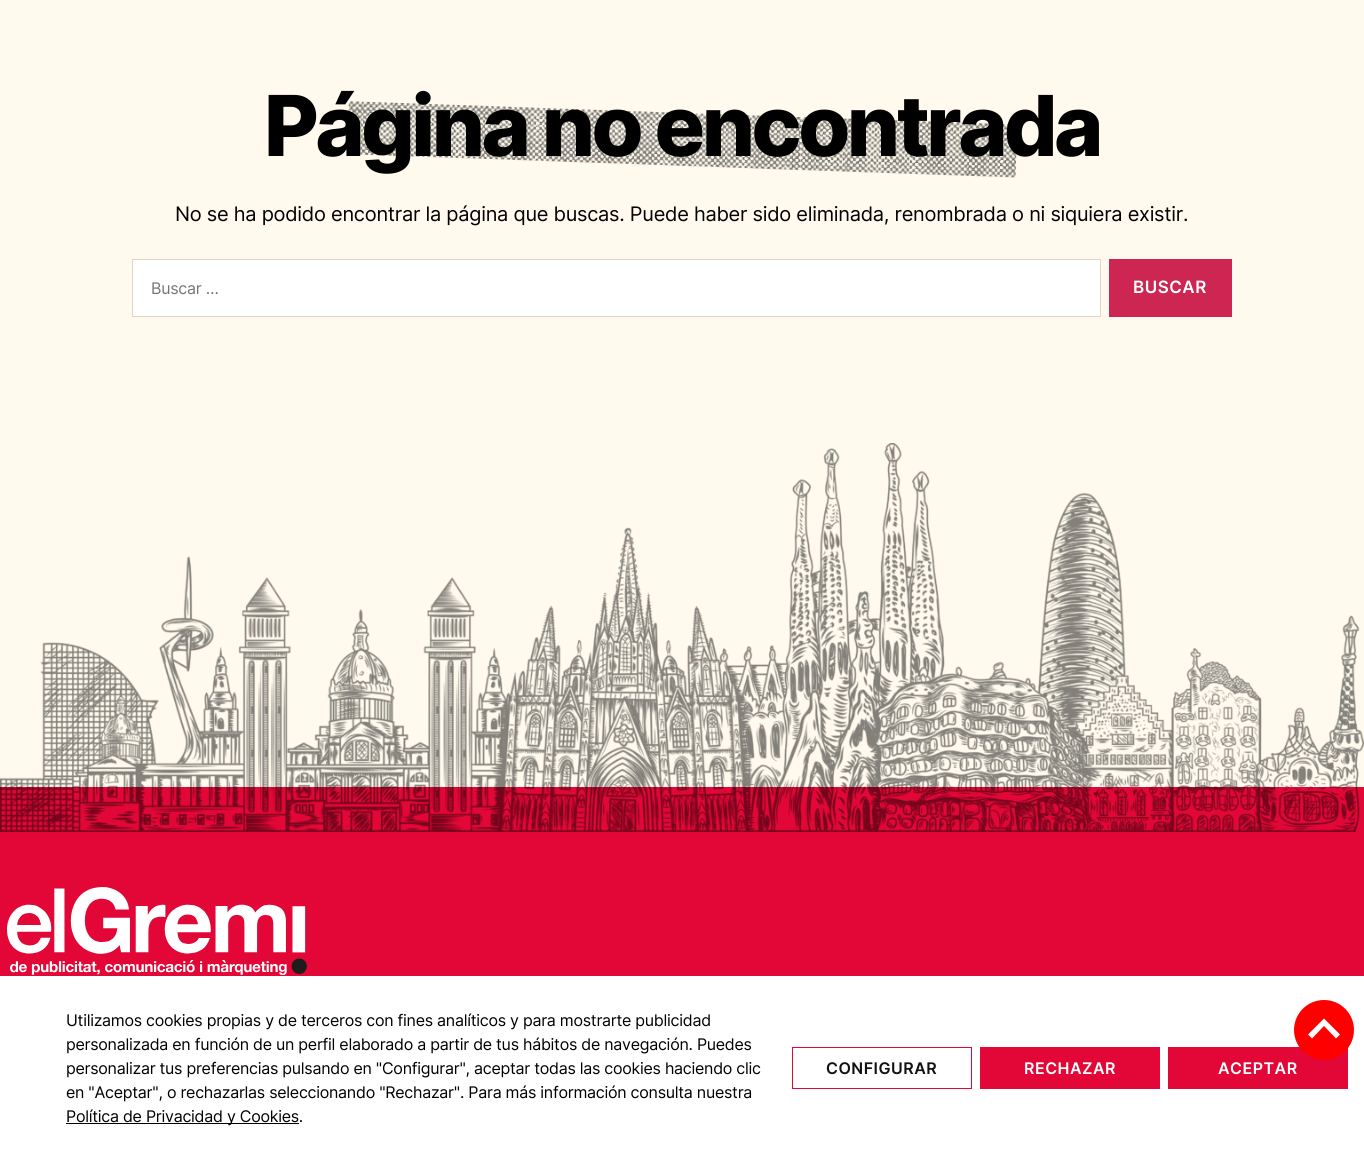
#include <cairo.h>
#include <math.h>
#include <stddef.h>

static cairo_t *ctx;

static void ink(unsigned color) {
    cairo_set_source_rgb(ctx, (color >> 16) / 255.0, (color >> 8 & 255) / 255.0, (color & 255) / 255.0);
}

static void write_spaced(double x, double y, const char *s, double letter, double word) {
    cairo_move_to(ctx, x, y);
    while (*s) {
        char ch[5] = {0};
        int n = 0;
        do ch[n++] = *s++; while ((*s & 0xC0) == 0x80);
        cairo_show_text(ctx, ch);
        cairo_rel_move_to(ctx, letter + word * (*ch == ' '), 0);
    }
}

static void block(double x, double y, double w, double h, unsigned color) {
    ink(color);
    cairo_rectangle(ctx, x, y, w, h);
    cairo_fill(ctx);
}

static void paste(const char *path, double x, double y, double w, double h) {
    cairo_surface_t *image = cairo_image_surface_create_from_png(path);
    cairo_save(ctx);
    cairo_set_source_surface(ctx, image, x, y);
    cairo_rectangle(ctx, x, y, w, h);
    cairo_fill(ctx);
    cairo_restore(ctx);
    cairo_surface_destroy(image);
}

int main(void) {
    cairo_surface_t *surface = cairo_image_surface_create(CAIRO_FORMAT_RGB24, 1364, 1160);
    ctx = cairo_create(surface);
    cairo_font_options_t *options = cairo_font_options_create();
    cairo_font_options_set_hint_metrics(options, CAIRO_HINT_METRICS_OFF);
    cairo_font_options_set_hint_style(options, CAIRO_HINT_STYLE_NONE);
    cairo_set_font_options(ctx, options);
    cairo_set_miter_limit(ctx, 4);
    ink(0xfffaed);
    cairo_paint(ctx);
    paste("pic1.png", 347, 101, 671, 77);
    cairo_select_font_face(ctx, "Inter ExtraBold", CAIRO_FONT_SLANT_NORMAL, CAIRO_FONT_WEIGHT_NORMAL);
    cairo_set_font_size(ctx, 84);
    ink(0x000000);
    write_spaced(264, 156, "Página no encontrada", -3.5, 0);
    cairo_select_font_face(ctx, "Inter", CAIRO_FONT_SLANT_NORMAL, CAIRO_FONT_WEIGHT_NORMAL);
    cairo_set_font_size(ctx, 20);
    write_spaced(175, 221, "No se ha podido encontrar la página que buscas. Puede haber sido eliminada, renombrada o ni siquiera existir.", -0.27, 0);
    ink(0xffffff);
    cairo_rectangle(ctx, 132.5, 259.5, 968, 57);
    cairo_fill_preserve(ctx);
    ink(0xdcd7ca);
    cairo_set_line_width(ctx, 1);
    cairo_stroke(ctx);
    cairo_set_font_size(ctx, 16);
    ink(0x757575);
    write_spaced(151, 294, "Buscar …", -0.25, 0);
    block(1109, 259, 123, 58, 0xcd2653);
    cairo_select_font_face(ctx, "Inter SemiBold", CAIRO_FONT_SLANT_NORMAL, CAIRO_FONT_WEIGHT_NORMAL);
    cairo_set_font_size(ctx, 17);
    ink(0xffffff);
    write_spaced(1133, 293, "BUSCAR", 0.5, 0);
    block(0, 787, 1364, 189, 0xe20736);
    paste("pic2.png", 0, 443, 1364, 389);
    paste("pic3.png", 7, 887, 300, 88);
    block(0, 976, 1364, 184, 0xffffff);
    cairo_select_font_face(ctx, "Inter", CAIRO_FONT_SLANT_NORMAL, CAIRO_FONT_WEIGHT_NORMAL);
    cairo_set_font_size(ctx, 16);
    ink(0x000000);
    write_spaced(66, 1026, "Utilizamos cookies propias y de terceros con fines analíticos y para mostrarte publicidad", -0.27, 0);
    write_spaced(66, 1050, "personalizada en función de un perfil elaborado a partir de tus hábitos de navegación. Puedes", -0.27, 0);
    write_spaced(66, 1074, "personalizar tus preferencias pulsando en \"Configurar\", aceptar todas las cookies haciendo clic", -0.27, 0);
    write_spaced(66, 1098, "en \"Aceptar\", o rechazarlas seleccionando \"Rechazar\". Para más información consulta nuestra", -0.27, 0);
    block(66, 1123, 233, 1, 0x000000);
    write_spaced(66, 1122, "Política de Privacidad y Cookies.", -0.27, 0);
    cairo_rectangle(ctx, 792.5, 1047.5, 179, 41);
    ink(0xe20736);
    cairo_stroke(ctx);
    cairo_select_font_face(ctx, "Inter SemiBold", CAIRO_FONT_SLANT_NORMAL, CAIRO_FONT_WEIGHT_NORMAL);
    ink(0x111111);
    write_spaced(826, 1074, "CONFIGURAR", 0.5, 0);
    block(980, 1047, 180, 42, 0xe20736);
    ink(0xffffff);
    write_spaced(1024, 1074, "RECHAZAR", 0.5, 0);
    block(1168, 1047, 180, 42, 0xe20736);
    ink(0xffffff);
    write_spaced(1218, 1074, "ACEPTAR", 0.5, 0);
    ink(0xff0000);
    cairo_new_path(ctx);
    cairo_arc(ctx, 1324, 1030, 30, 0, 2 * M_PI);
    cairo_fill(ctx);
    ink(0xffffff);
    cairo_new_path(ctx);
    cairo_move_to(ctx, 1312, 1038.5);
    cairo_line_to(ctx, 1324, 1026);
    cairo_line_to(ctx, 1336, 1038.5);
    cairo_line_to(ctx, 1340, 1034.5);
    cairo_line_to(ctx, 1324, 1018.5);
    cairo_line_to(ctx, 1308, 1034.5);
    cairo_close_path(ctx);
    cairo_fill(ctx);
    cairo_surface_write_to_png(surface, "screenshot.png");
    cairo_font_options_destroy(options);
    cairo_destroy(ctx);
    cairo_surface_destroy(surface);
    return 0;
}
